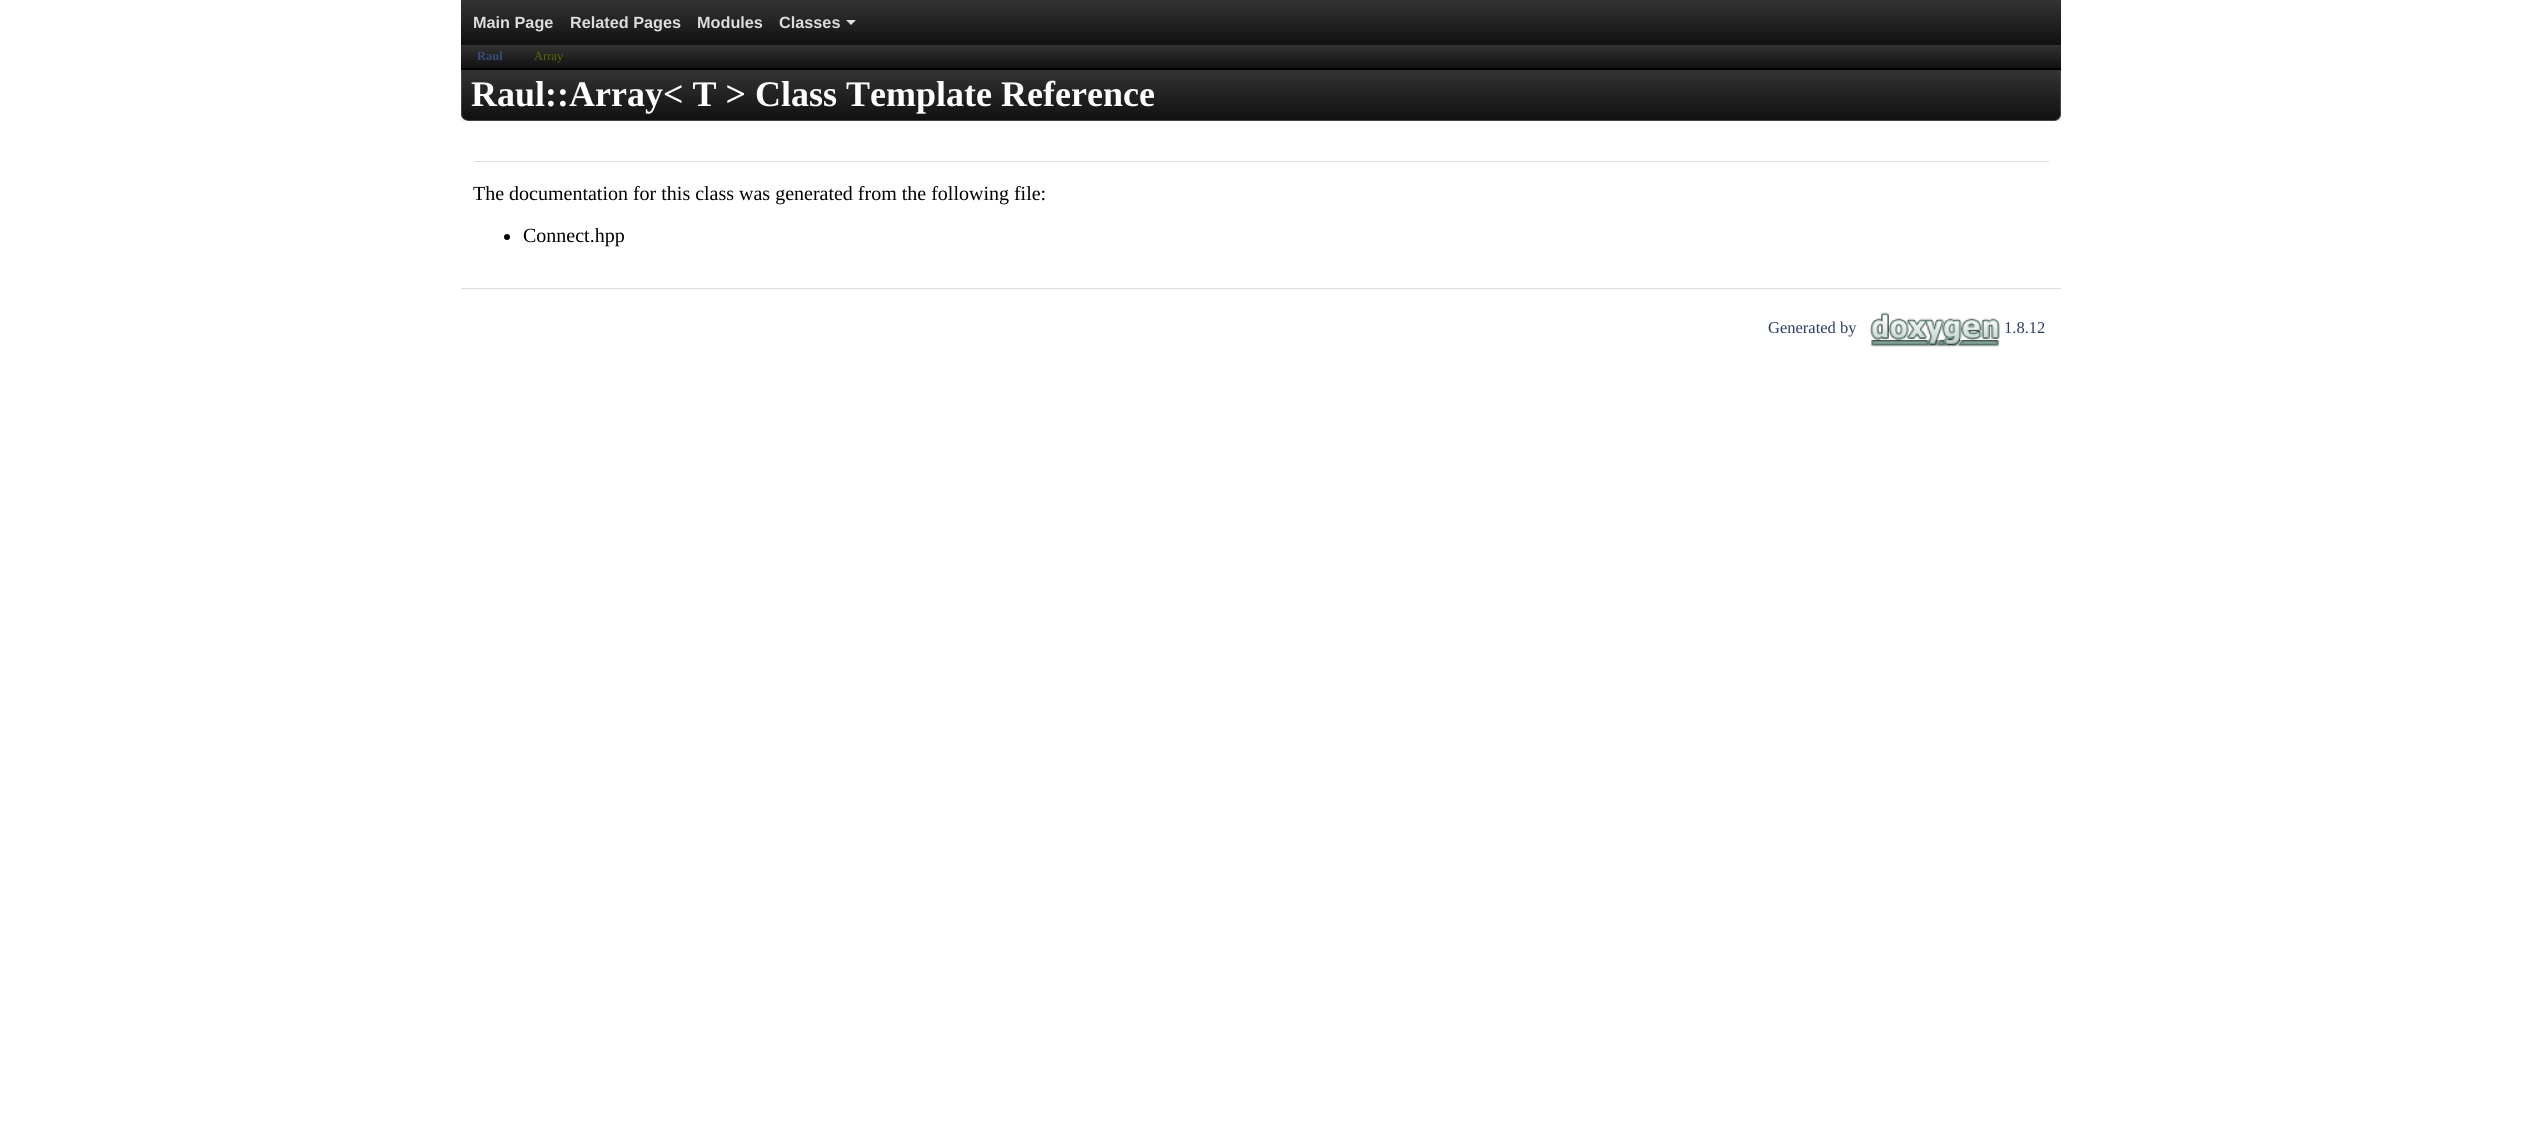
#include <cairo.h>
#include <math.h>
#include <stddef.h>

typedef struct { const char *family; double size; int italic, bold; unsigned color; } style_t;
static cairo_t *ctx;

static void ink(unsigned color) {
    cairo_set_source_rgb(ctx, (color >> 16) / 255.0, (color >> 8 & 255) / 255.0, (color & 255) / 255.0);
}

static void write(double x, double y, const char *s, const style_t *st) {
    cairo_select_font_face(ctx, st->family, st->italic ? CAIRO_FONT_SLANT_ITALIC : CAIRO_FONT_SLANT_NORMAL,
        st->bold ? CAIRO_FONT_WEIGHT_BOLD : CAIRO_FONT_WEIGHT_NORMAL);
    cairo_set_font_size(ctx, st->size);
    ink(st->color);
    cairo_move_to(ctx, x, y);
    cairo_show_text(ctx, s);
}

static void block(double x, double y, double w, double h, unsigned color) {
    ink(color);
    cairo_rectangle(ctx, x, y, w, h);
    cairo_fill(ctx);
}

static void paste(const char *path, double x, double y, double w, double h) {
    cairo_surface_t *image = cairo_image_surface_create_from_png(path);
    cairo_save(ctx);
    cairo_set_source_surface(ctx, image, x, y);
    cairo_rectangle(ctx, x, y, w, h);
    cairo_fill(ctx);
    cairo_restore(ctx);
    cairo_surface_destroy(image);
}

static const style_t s1 = {"Liberation Sans", 16.25, 0, 1, 0xdddddd};
static const style_t s2 = {"Liberation Serif", 12.5, 0, 1, 0x364d7c};
static const style_t s3 = {"Liberation Serif", 12.5, 0, 0, 0x546e00};
static const style_t s4 = {"Liberation Serif", 36, 0, 1, 0xffffff};
static const style_t s5 = {"Liberation Serif", 20, 0, 0, 0x000000};
static const style_t s6 = {"Liberation Serif", 16.5, 0, 0, 0x2a3d61};

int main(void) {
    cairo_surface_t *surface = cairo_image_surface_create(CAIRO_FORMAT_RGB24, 2521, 1134);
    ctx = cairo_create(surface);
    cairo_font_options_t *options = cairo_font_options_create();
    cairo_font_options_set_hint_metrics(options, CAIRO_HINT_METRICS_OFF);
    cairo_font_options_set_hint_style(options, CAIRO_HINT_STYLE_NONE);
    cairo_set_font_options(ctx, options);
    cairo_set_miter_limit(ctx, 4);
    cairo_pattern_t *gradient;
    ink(0xffffff);
    cairo_paint(ctx);
    gradient = cairo_pattern_create_linear(1261, 0, 1261, 45);
    cairo_pattern_add_color_stop_rgba(gradient, 0, 0.2, 0.2, 0.2, 1);
    cairo_pattern_add_color_stop_rgba(gradient, 1, 0.067, 0.067, 0.067, 1);
    cairo_set_source(ctx, gradient);
    cairo_pattern_destroy(gradient);
    cairo_rectangle(ctx, 461, 0, 1600, 45);
    cairo_fill(ctx);
    write(473, 28, "Main Page", &s1);
    write(570, 28, "Related Pages", &s1);
    write(697, 28, "Modules", &s1);
    write(779, 28, "Classes", &s1);
    cairo_new_path(ctx);
    cairo_move_to(ctx, 846, 20);
    cairo_line_to(ctx, 856, 20);
    cairo_line_to(ctx, 851, 25);
    cairo_close_path(ctx);
    cairo_fill(ctx);
    gradient = cairo_pattern_create_linear(1261, 45, 1261, 68);
    cairo_pattern_add_color_stop_rgba(gradient, 0, 0.2, 0.2, 0.2, 1);
    cairo_pattern_add_color_stop_rgba(gradient, 1, 0.067, 0.067, 0.067, 1);
    cairo_set_source(ctx, gradient);
    cairo_pattern_destroy(gradient);
    cairo_rectangle(ctx, 461, 45, 1600, 23);
    cairo_fill(ctx);
    block(461, 68, 1600, 2, 0x000000);
    write(477, 60, "Raul", &s2);
    write(534, 60, "Array", &s3);
    block(461, 114, 1600, 7, 0xf3f3f3);
    cairo_save(ctx);
    cairo_new_path(ctx);
    cairo_move_to(ctx, 461, 70);
    cairo_line_to(ctx, 2061, 70);
    cairo_line_to(ctx, 2061, 113);
    cairo_curve_to(ctx, 2061, 117.5, 2057.5, 121, 2053, 121);
    cairo_line_to(ctx, 469, 121);
    cairo_curve_to(ctx, 464.5, 121, 461, 117.5, 461, 113);
    cairo_close_path(ctx);
    cairo_clip(ctx);
    gradient = cairo_pattern_create_linear(1261, 70, 1261, 120);
    cairo_pattern_add_color_stop_rgba(gradient, 0, 0.2, 0.2, 0.2, 1);
    cairo_pattern_add_color_stop_rgba(gradient, 1, 0.067, 0.067, 0.067, 1);
    cairo_set_source(ctx, gradient);
    cairo_pattern_destroy(gradient);
    cairo_rectangle(ctx, 461, 70, 1600, 50);
    cairo_fill(ctx);
    cairo_restore(ctx);
    ink(0x444444);
    cairo_set_fill_rule(ctx, CAIRO_FILL_RULE_EVEN_ODD);
    cairo_new_path(ctx);
    cairo_move_to(ctx, 461, 70);
    cairo_line_to(ctx, 2061, 70);
    cairo_line_to(ctx, 2061, 114);
    cairo_curve_to(ctx, 2061, 118, 2058, 121, 2054, 121);
    cairo_line_to(ctx, 469, 121);
    cairo_curve_to(ctx, 465, 121, 461, 118, 461, 114);
    cairo_close_path(ctx);
    cairo_move_to(ctx, 462, 70);
    cairo_line_to(ctx, 2060, 70);
    cairo_line_to(ctx, 2060, 114);
    cairo_curve_to(ctx, 2060, 117, 2057, 120, 2054, 120);
    cairo_line_to(ctx, 469, 120);
    cairo_curve_to(ctx, 465, 120, 462, 117, 462, 114);
    cairo_close_path(ctx);
    cairo_fill(ctx);
    write(471, 106, "Raul::Array< T > Class Template Reference", &s4);
    block(474, 161, 1575, 1, 0xdddddd);
    write(473, 200, "The documentation for this class was generated from the following file:", &s5);
    cairo_new_path(ctx);
    cairo_arc(ctx, 507, 237, 3, 0, 2 * M_PI);
    cairo_fill(ctx);
    write(523, 242, "Connect.hpp", &s5);
    block(461, 288, 1600, 1, 0xdddddd);
    write(1768, 333, "Generated by", &s6);
    paste("pic1.png", 1870, 312, 130, 35);
    write(2004, 333, "1.8.12", &s6);
    cairo_surface_write_to_png(surface, "screenshot.png");
    cairo_font_options_destroy(options);
    cairo_destroy(ctx);
    cairo_surface_destroy(surface);
    return 0;
}
